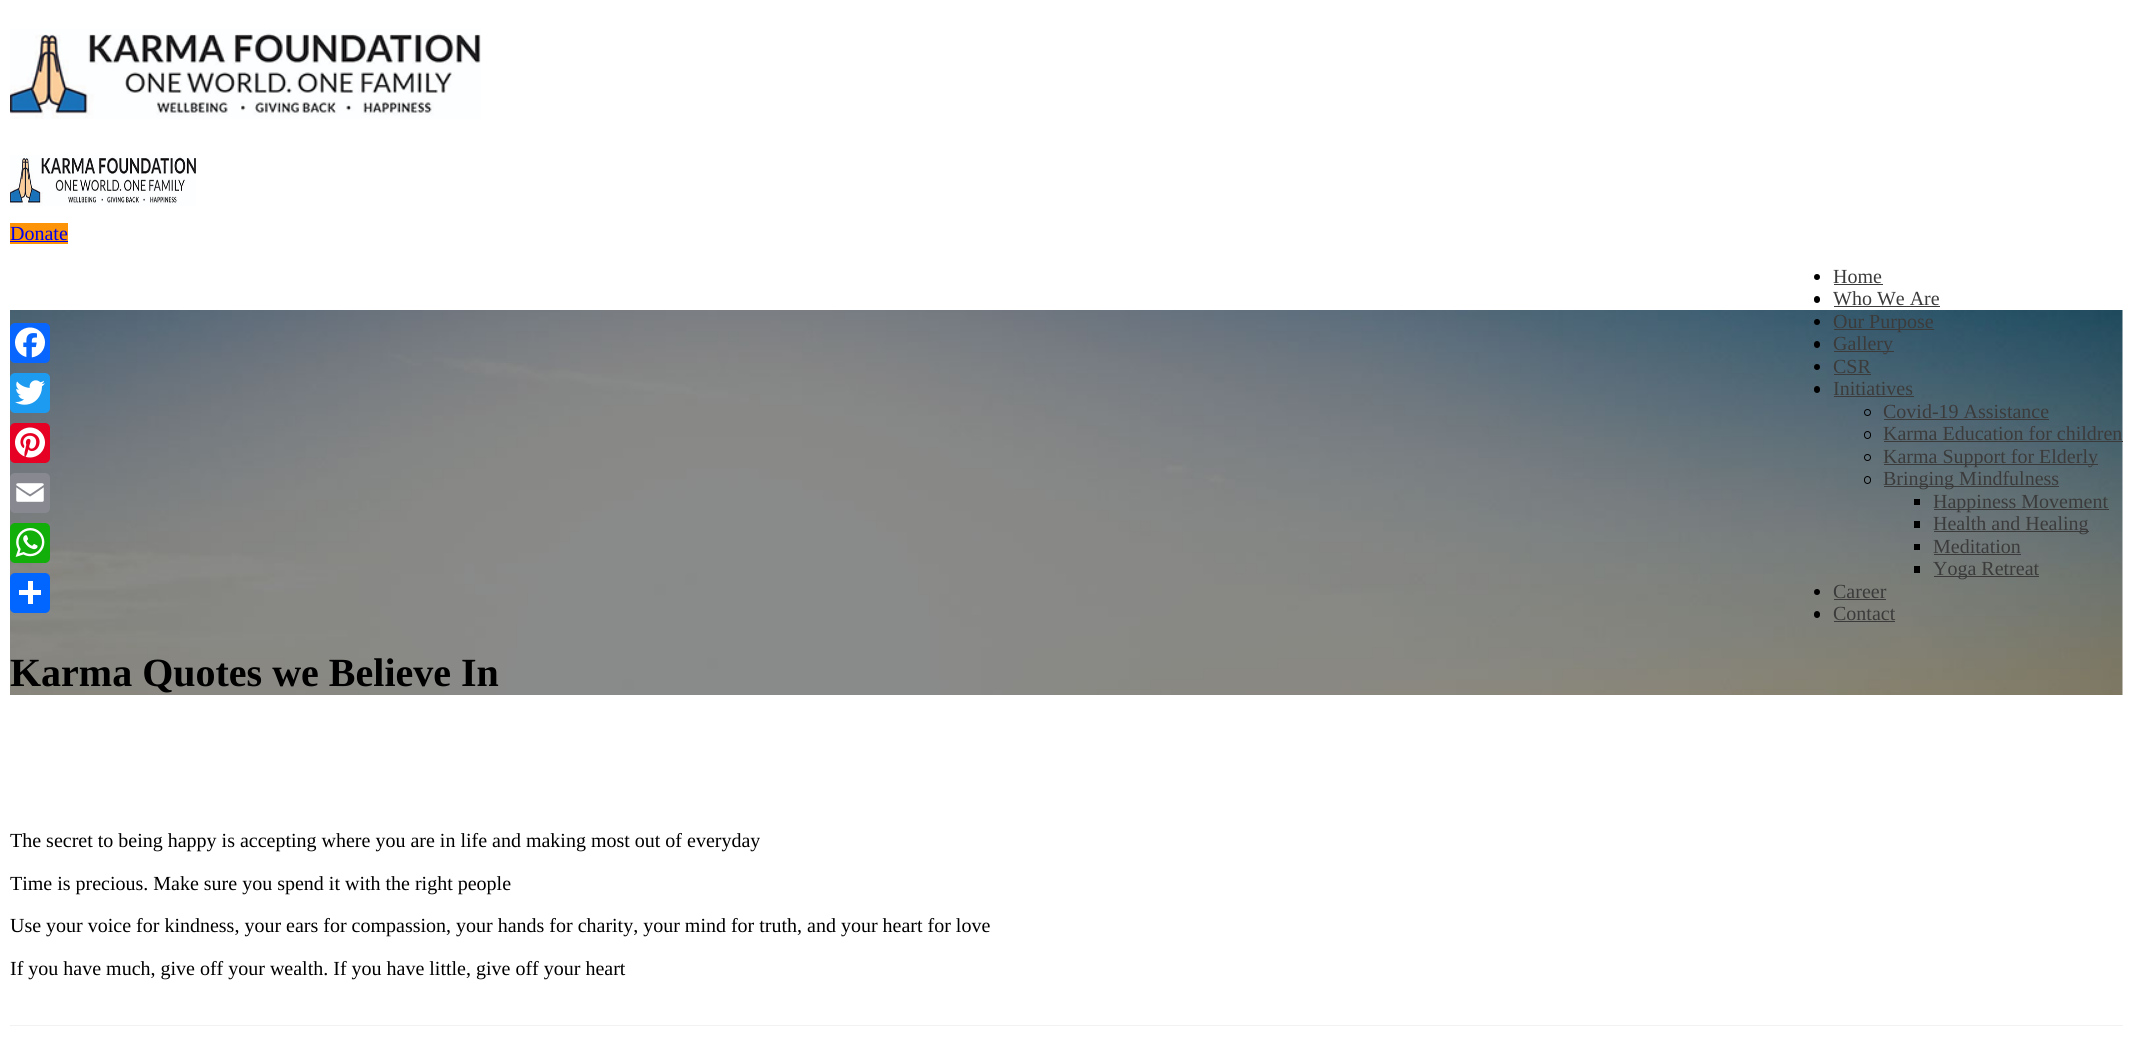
#include <cairo.h>
#include <math.h>
#include <stddef.h>

typedef struct { const char *family; double size; int italic, bold; unsigned color; } style_t;
static cairo_t *ctx;

static void ink(unsigned color) {
    cairo_set_source_rgb(ctx, (color >> 16) / 255.0, (color >> 8 & 255) / 255.0, (color & 255) / 255.0);
}

static void write(double x, double y, const char *s, const style_t *st) {
    cairo_select_font_face(ctx, st->family, st->italic ? CAIRO_FONT_SLANT_ITALIC : CAIRO_FONT_SLANT_NORMAL,
        st->bold ? CAIRO_FONT_WEIGHT_BOLD : CAIRO_FONT_WEIGHT_NORMAL);
    cairo_set_font_size(ctx, st->size);
    ink(st->color);
    cairo_move_to(ctx, x, y);
    cairo_show_text(ctx, s);
}

static void block(double x, double y, double w, double h, unsigned color) {
    ink(color);
    cairo_rectangle(ctx, x, y, w, h);
    cairo_fill(ctx);
}

static void round_path(double x, double y, double w, double h, double r) {
    cairo_new_sub_path(ctx);
    cairo_arc(ctx, x + w - r, y + h - r, r, 0, M_PI / 2);
    cairo_arc(ctx, x + r, y + h - r, r, M_PI / 2, M_PI);
    cairo_arc(ctx, x + r, y + r, r, M_PI, 1.5 * M_PI);
    cairo_arc(ctx, x + w - r, y + r, r, 1.5 * M_PI, 2 * M_PI);
    cairo_close_path(ctx);
}

static void paste(const char *path, double x, double y, double w, double h) {
    cairo_surface_t *image = cairo_image_surface_create_from_png(path);
    cairo_save(ctx);
    cairo_set_source_surface(ctx, image, x, y);
    cairo_rectangle(ctx, x, y, w, h);
    cairo_fill(ctx);
    cairo_restore(ctx);
    cairo_surface_destroy(image);
}

static const style_t s1 = {"Liberation Serif", 20, 0, 0, 0x0000ee};
static const style_t s2 = {"Liberation Serif", 20, 0, 0, 0x3b3b3b};
static const style_t s3 = {"Liberation Serif", 40, 0, 1, 0x000000};
static const style_t s4 = {"Liberation Serif", 20, 0, 0, 0x000000};

int main(void) {
    cairo_surface_t *surface = cairo_image_surface_create(CAIRO_FORMAT_RGB24, 2132, 1061);
    ctx = cairo_create(surface);
    cairo_font_options_t *options = cairo_font_options_create();
    cairo_font_options_set_hint_metrics(options, CAIRO_HINT_METRICS_OFF);
    cairo_font_options_set_hint_style(options, CAIRO_HINT_STYLE_NONE);
    cairo_set_font_options(ctx, options);
    cairo_set_miter_limit(ctx, 4);
    ink(0xffffff);
    cairo_paint(ctx);
    paste("pic1.png", 10, 29, 471, 90);
    paste("pic2.png", 10, 155, 186, 51);
    block(10, 223, 58, 21, 0xfd9307);
    write(10, 240, "Donate", &s1);
    block(10, 241, 58, 1, 0x0000ee);
    ink(0x000000);
    cairo_new_path(ctx);
    cairo_arc(ctx, 1817, 277, 3, 0, 2 * M_PI);
    cairo_fill(ctx);
    write(1833, 283, "Home", &s2);
    block(1834, 284, 49, 1, 0x3b3b3b);
    ink(0x000000);
    round_path(1814, 296, 6, 7, 3);
    cairo_fill(ctx);
    write(1833, 305, "Who We Are", &s2);
    block(1834, 306, 106, 1, 0x3b3b3b);
    paste("pic3.png", 10, 310, 2113, 385);
    ink(0x000000);
    cairo_arc(ctx, 1817, 322, 3, 0, 2 * M_PI);
    cairo_fill(ctx);
    block(1834, 329, 100, 1, 0x3b3b3b);
    write(1833, 328, "Our Purpose", &s2);
    ink(0x000000);
    round_path(1814, 341, 6, 7, 3);
    cairo_fill(ctx);
    block(1834, 351, 60, 1, 0x3b3b3b);
    write(1833, 350, "Gallery", &s2);
    ink(0x000000);
    cairo_new_path(ctx);
    cairo_arc(ctx, 1817, 367, 3, 0, 2 * M_PI);
    cairo_fill(ctx);
    write(1833, 373, "CSR", &s2);
    block(1834, 374, 37, 1, 0x3b3b3b);
    ink(0x000000);
    round_path(1814, 386, 6, 7, 3);
    cairo_fill(ctx);
    write(1833, 395, "Initiatives", &s2);
    block(1834, 396, 80, 1, 0x3b3b3b);
    cairo_new_path(ctx);
    cairo_arc(ctx, 1867.5, 412.5, 3, 0, 2 * M_PI);
    ink(0x000000);
    cairo_set_line_width(ctx, 1);
    cairo_stroke(ctx);
    write(1883, 418, "Covid-19 Assistance", &s2);
    block(1884, 419, 165, 1, 0x3b3b3b);
    round_path(1864.5, 431.5, 6, 7, 3);
    ink(0x000000);
    cairo_stroke(ctx);
    write(1883, 440, "Karma Education for children", &s2);
    block(1884, 441, 239, 1, 0x3b3b3b);
    cairo_new_path(ctx);
    cairo_arc(ctx, 1867.5, 457.5, 3, 0, 2 * M_PI);
    ink(0x000000);
    cairo_stroke(ctx);
    block(1884, 464, 214, 1, 0x3b3b3b);
    write(1883, 463, "Karma Support for Elderly", &s2);
    round_path(1864.5, 476.5, 6, 7, 3);
    ink(0x000000);
    cairo_stroke(ctx);
    block(1884, 486, 175, 1, 0x3b3b3b);
    write(1883, 485, "Bringing Mindfulness", &s2);
    block(1914, 499, 6, 6, 0x000000);
    block(1934, 509, 175, 1, 0x3b3b3b);
    write(1933, 508, "Happiness Movement", &s2);
    block(1914, 521, 6, 7, 0x000000);
    block(1934, 531, 155, 1, 0x3b3b3b);
    write(1933, 530, "Health and Healing", &s2);
    block(1914, 544, 6, 6, 0x000000);
    write(1933, 553, "Meditation", &s2);
    block(1934, 554, 87, 1, 0x3b3b3b);
    block(1914, 566, 6, 7, 0x000000);
    block(1934, 576, 105, 1, 0x3b3b3b);
    write(1933, 575, "Yoga Retreat", &s2);
    ink(0x000000);
    cairo_new_path(ctx);
    cairo_arc(ctx, 1817, 592, 3, 0, 2 * M_PI);
    cairo_fill(ctx);
    write(1833, 598, "Career", &s2);
    block(1834, 599, 52, 1, 0x3b3b3b);
    ink(0x000000);
    round_path(1814, 611, 6, 7, 3);
    cairo_fill(ctx);
    write(1833, 620, "Contact", &s2);
    block(1834, 621, 61, 1, 0x3b3b3b);
    write(10, 686, "Karma Quotes we Believe In", &s3);
    write(10, 847, "The secret to being happy is accepting where you are in life and making most out of everyday", &s4);
    write(10, 890, "Time is precious. Make sure you spend it with the right people", &s4);
    block(10, 1025, 2113, 1, 0xf2f2f2);
    write(10, 932, "Use your voice for kindness, your ears for compassion, your hands for charity, your mind for truth, and your heart for love", &s4);
    write(10, 975, "If you have much, give off your wealth. If you have little, give off your heart", &s4);
    ink(0x0866ff);
    round_path(10, 323, 40, 40, 5);
    cairo_fill(ctx);
    paste("pic4.png", 15, 327, 30, 31);
    ink(0x1d9bf0);
    round_path(10, 373, 40, 40, 5);
    cairo_fill(ctx);
    paste("pic5.png", 15, 380, 30, 25);
    ink(0xe60023);
    round_path(10, 423, 40, 40, 5);
    cairo_fill(ctx);
    paste("pic6.png", 15, 427, 30, 31);
    ink(0x888990);
    round_path(10, 473, 40, 40, 5);
    cairo_fill(ctx);
    paste("pic7.png", 16, 483, 28, 19);
    ink(0x12af0a);
    round_path(10, 523, 40, 40, 5);
    cairo_fill(ctx);
    paste("pic8.png", 15, 528, 30, 29);
    ink(0x0166ff);
    round_path(10, 573, 40, 40, 5);
    cairo_fill(ctx);
    block(28, 581, 5, 23, 0xffffff);
    block(19, 590, 22, 5, 0xffffff);
    cairo_surface_write_to_png(surface, "screenshot.png");
    cairo_font_options_destroy(options);
    cairo_destroy(ctx);
    cairo_surface_destroy(surface);
    return 0;
}
